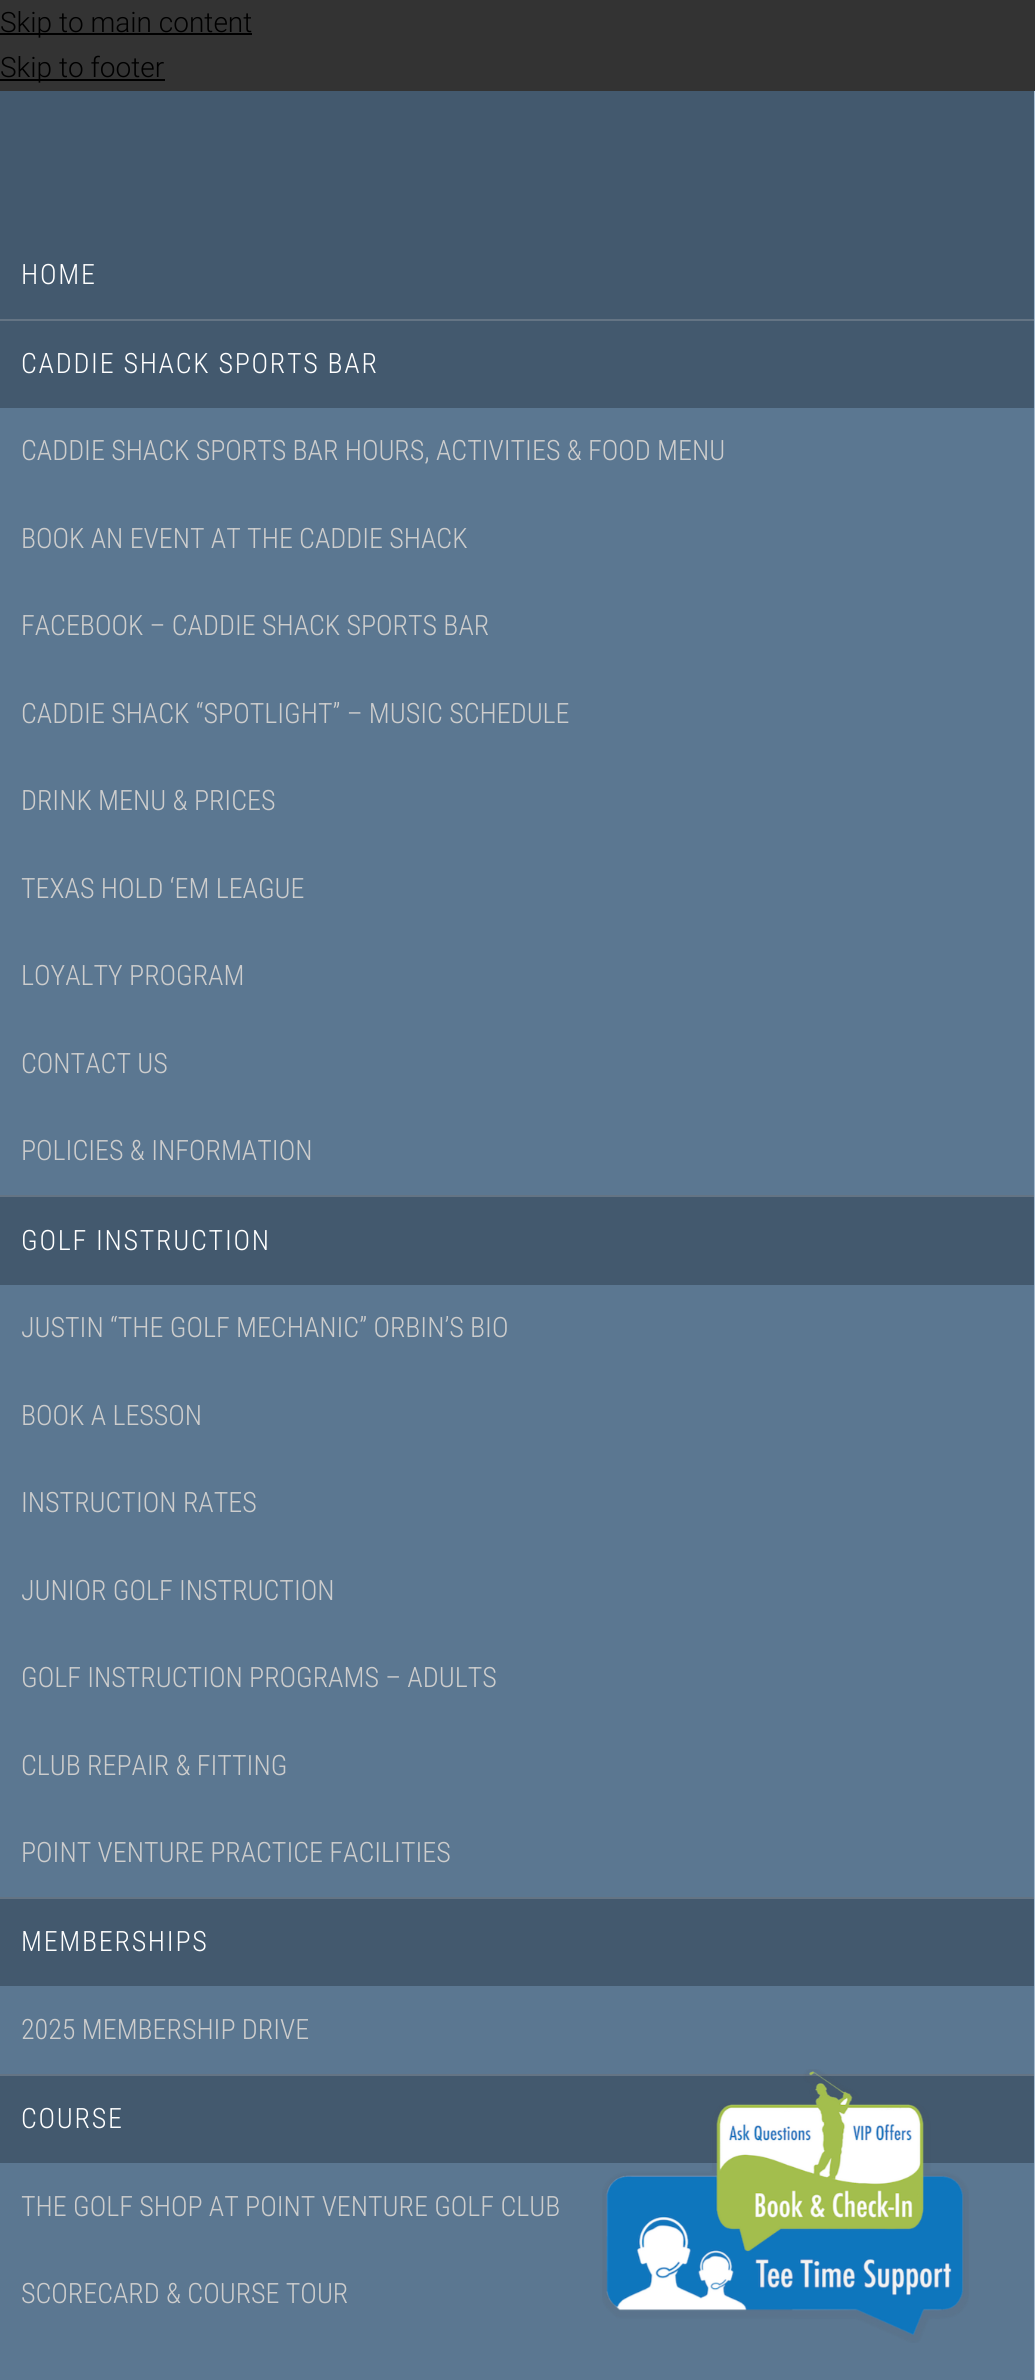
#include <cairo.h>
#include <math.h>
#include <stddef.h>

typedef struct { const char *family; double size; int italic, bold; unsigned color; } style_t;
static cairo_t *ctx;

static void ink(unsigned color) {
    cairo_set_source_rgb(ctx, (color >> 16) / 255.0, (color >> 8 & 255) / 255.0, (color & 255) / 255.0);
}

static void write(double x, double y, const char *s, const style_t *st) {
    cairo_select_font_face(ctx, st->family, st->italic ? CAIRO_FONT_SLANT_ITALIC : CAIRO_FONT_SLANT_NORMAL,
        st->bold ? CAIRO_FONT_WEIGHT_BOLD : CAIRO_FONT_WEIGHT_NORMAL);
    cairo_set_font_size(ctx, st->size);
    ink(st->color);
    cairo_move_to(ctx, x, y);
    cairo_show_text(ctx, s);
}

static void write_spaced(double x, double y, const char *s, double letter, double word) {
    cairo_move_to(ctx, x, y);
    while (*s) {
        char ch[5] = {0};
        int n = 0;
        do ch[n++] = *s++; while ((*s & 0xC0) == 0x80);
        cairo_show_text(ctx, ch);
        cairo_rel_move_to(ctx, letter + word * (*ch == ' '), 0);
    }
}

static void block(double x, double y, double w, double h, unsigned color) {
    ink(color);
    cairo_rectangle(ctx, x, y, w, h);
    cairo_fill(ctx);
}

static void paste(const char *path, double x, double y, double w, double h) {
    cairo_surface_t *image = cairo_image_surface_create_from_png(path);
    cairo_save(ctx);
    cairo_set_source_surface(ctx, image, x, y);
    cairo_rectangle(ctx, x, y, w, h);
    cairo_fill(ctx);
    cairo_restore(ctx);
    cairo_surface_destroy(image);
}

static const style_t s1 = {"Roboto Light", 28, 0, 0, 0x000000};
static const style_t s2 = {"Roboto Condensed Light", 28, 0, 0, 0xcdcdcd};

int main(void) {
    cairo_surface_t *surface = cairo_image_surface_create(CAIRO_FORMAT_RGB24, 1035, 2380);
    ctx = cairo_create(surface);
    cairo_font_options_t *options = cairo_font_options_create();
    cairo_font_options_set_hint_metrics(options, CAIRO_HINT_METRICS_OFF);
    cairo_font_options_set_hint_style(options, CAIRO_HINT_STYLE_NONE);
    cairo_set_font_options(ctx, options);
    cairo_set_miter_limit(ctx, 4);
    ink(0x333333);
    cairo_paint(ctx);
    block(0, 33, 252, 2, 0x000000);
    write(0, 32, "Skip to main content", &s1);
    block(0, 79, 165, 2, 0x000000);
    write(0, 77, "Skip to footer", &s1);
    block(0, 91, 1034, 2072, 0x43596e);
    block(1034, 91, 1, 2289, 0xa7bcd0);
    block(0, 319, 1034, 2, 0x647484);
    cairo_select_font_face(ctx, "Roboto Condensed Light", CAIRO_FONT_SLANT_NORMAL, CAIRO_FONT_WEIGHT_NORMAL);
    ink(0xffffff);
    write_spaced(21, 284, "HOME", 1.75, 0);
    block(0, 1195, 1034, 2, 0x647484);
    ink(0xffffff);
    write_spaced(21, 373, "CADDIE SHACK SPORTS BAR", 1.75, 0);
    block(0, 408, 1034, 787, 0x5b7791);
    write(21, 460, "CADDIE SHACK SPORTS BAR HOURS, ACTIVITIES & FOOD MENU", &s2);
    write(21, 548, "BOOK AN EVENT AT THE CADDIE SHACK", &s2);
    write(21, 635, "FACEBOOK – CADDIE SHACK SPORTS BAR", &s2);
    write(21, 723, "CADDIE SHACK “SPOTLIGHT” – MUSIC SCHEDULE", &s2);
    write(21, 810, "DRINK MENU & PRICES", &s2);
    write(21, 898, "TEXAS HOLD ‘EM LEAGUE", &s2);
    write(21, 985, "LOYALTY PROGRAM", &s2);
    write(21, 1073, "CONTACT US", &s2);
    write(21, 1160, "POLICIES & INFORMATION", &s2);
    block(0, 1897, 1034, 2, 0x647484);
    ink(0xffffff);
    write_spaced(21, 1250, "GOLF INSTRUCTION", 1.75, 0);
    block(0, 1285, 1034, 612, 0x5b7791);
    write(21, 1337, "JUSTIN “THE GOLF MECHANIC” ORBIN’S BIO", &s2);
    write(21, 1425, "BOOK A LESSON", &s2);
    write(21, 1512, "INSTRUCTION RATES", &s2);
    write(21, 1600, "JUNIOR GOLF INSTRUCTION", &s2);
    write(21, 1687, "GOLF INSTRUCTION PROGRAMS – ADULTS", &s2);
    write(21, 1775, "CLUB REPAIR & FITTING", &s2);
    write(21, 1862, "POINT VENTURE PRACTICE FACILITIES", &s2);
    block(0, 2074, 1034, 2, 0x647484);
    ink(0xffffff);
    write_spaced(21, 1951, "MEMBERSHIPS", 1.75, 0);
    block(0, 1986, 1034, 88, 0x5b7791);
    write(21, 2039, "2025 MEMBERSHIP DRIVE", &s2);
    ink(0xffffff);
    write_spaced(21, 2128, "COURSE", 1.75, 0);
    block(0, 2163, 1034, 217, 0x5b7791);
    write(21, 2216, "THE GOLF SHOP AT POINT VENTURE GOLF CLUB", &s2);
    write(21, 2303, "SCORECARD & COURSE TOUR", &s2);
    paste("pic1.png", 602, 2069, 367, 274);
    cairo_surface_write_to_png(surface, "screenshot.png");
    cairo_font_options_destroy(options);
    cairo_destroy(ctx);
    cairo_surface_destroy(surface);
    return 0;
}
